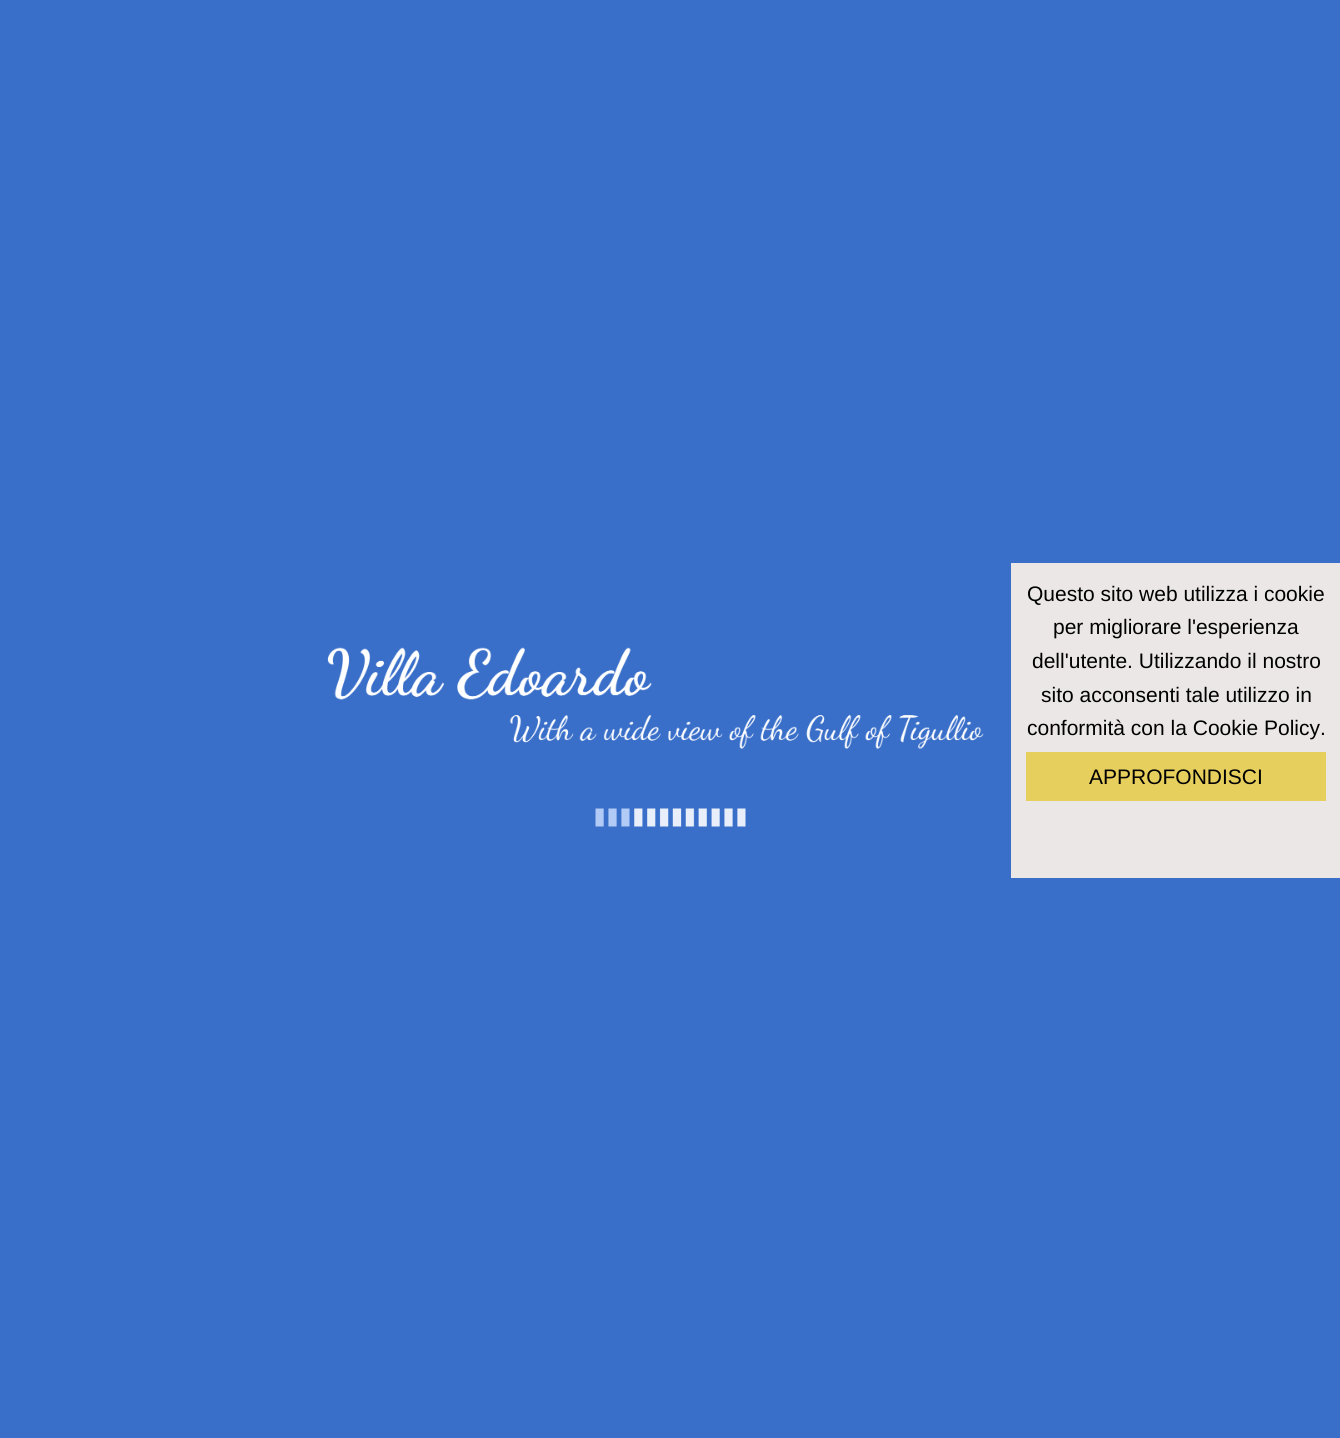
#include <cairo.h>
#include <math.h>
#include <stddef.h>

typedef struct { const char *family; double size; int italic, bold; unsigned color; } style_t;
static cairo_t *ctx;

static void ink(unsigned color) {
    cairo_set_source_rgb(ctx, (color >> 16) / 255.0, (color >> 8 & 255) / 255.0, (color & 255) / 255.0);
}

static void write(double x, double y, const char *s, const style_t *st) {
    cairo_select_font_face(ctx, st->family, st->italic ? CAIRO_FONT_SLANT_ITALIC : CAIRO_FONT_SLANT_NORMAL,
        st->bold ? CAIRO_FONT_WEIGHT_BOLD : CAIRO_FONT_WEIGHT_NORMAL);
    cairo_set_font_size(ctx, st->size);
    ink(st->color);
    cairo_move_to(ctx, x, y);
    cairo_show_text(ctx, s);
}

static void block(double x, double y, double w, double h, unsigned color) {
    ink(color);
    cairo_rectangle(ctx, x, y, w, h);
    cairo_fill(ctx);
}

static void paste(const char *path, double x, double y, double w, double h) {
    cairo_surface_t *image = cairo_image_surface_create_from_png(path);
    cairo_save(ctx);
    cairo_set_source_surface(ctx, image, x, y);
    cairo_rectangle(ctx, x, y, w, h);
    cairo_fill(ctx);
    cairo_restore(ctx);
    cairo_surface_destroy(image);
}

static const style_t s1 = {"Liberation Sans", 21, 0, 0, 0x000000};

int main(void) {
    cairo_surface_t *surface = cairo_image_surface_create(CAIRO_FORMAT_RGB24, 1340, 1438);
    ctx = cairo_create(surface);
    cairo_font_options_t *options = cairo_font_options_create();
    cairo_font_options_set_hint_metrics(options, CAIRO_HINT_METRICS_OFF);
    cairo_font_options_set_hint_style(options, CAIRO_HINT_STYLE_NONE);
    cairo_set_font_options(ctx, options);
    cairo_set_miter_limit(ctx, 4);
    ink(0x396fc9);
    cairo_paint(ctx);
    paste("pic1.png", 327, 647, 657, 102);
    paste("pic2.png", 595, 808, 151, 19);
    block(1011, 563, 329, 315, 0xece7e7);
    write(1027, 601, "Questo sito web utilizza i cookie", &s1);
    write(1053, 634, "per migliorare l'esperienza", &s1);
    write(1032, 668, "dell'utente. Utilizzando il nostro", &s1);
    write(1041, 702, "sito acconsenti tale utilizzo in", &s1);
    write(1027, 735, "conformità con la Cookie Policy.", &s1);
    block(1026, 752, 300, 49, 0xe7cf5e);
    write(1089, 784, "APPROFONDISCI", &s1);
    cairo_surface_write_to_png(surface, "screenshot.png");
    cairo_font_options_destroy(options);
    cairo_destroy(ctx);
    cairo_surface_destroy(surface);
    return 0;
}
